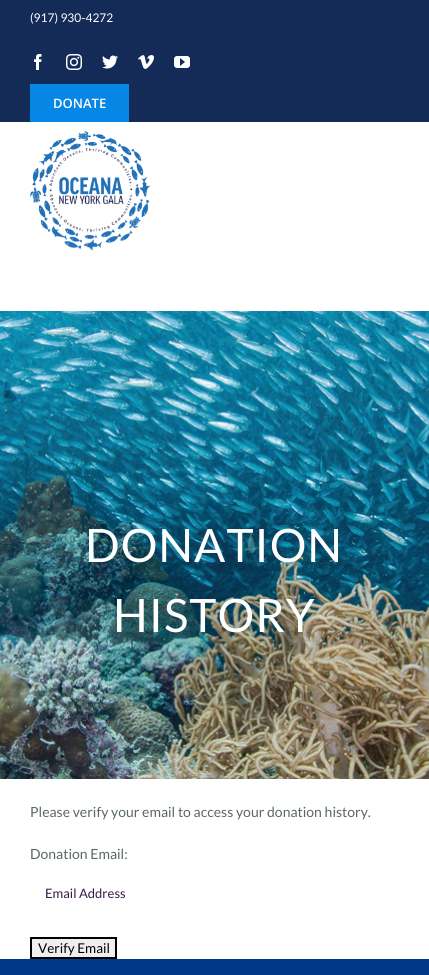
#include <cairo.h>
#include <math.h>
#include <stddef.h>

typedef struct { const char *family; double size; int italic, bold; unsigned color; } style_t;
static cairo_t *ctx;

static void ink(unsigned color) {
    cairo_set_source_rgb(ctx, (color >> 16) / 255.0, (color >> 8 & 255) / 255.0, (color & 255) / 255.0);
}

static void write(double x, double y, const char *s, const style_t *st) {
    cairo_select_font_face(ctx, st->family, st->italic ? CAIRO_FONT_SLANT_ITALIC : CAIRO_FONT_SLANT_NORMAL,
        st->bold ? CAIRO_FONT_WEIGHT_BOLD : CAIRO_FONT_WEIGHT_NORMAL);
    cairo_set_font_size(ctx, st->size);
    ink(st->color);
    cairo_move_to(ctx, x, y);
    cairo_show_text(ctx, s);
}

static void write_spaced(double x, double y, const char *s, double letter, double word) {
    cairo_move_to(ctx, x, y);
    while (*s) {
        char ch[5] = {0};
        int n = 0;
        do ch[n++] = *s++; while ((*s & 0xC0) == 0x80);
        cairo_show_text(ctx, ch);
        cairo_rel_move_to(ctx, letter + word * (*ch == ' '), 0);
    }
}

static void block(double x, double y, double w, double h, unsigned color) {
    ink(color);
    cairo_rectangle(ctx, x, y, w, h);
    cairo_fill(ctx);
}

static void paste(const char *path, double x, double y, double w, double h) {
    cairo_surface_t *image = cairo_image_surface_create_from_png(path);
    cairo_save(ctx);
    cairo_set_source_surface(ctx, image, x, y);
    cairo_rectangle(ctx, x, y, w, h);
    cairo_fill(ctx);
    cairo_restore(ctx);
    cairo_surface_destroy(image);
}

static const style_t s1 = {"Lato", 12, 0, 0, 0xffffff};
static const style_t s2 = {"Open Sans SemiBold", 13, 0, 0, 0xffffff};
static const style_t s3 = {"Lato", 14, 0, 0, 0x5c6668};
static const style_t s4 = {"Lato", 13, 0, 0, 0x3b1748};
static const style_t s5 = {"Lato", 13.5, 0, 0, 0x000000};

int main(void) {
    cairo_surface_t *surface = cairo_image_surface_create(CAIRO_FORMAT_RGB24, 429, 975);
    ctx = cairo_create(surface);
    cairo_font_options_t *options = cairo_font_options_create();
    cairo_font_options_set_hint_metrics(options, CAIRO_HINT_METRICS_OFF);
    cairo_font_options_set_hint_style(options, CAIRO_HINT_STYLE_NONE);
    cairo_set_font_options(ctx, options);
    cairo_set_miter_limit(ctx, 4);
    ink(0xffffff);
    cairo_paint(ctx);
    block(0, 0, 429, 122, 0x142b58);
    write(30, 22, "(917) 930-4272", &s1);
    paste("pic1.png", 34, 54, 8, 16);
    paste("pic2.png", 66, 54, 16, 16);
    paste("pic3.png", 102, 55, 16, 14);
    paste("pic4.png", 138, 55, 16, 14);
    paste("pic5.png", 174, 56, 16, 12);
    block(30, 84, 99, 38, 0x0686e5);
    write(53, 108, "DONATE", &s2);
    paste("pic6.png", 30, 131, 120, 119);
    paste("pic7.png", 0, 311, 429, 468);
    cairo_select_font_face(ctx, "Lato", CAIRO_FONT_SLANT_NORMAL, CAIRO_FONT_WEIGHT_NORMAL);
    cairo_set_font_size(ctx, 46);
    write_spaced(85, 562, "DONATION", 1, 0);
    write_spaced(113, 632, "HISTORY", 1, 0);
    write(30, 817, "Please verify your email to access your donation history.", &s3);
    write(30, 859, "Donation Email:", &s3);
    write(45, 898, "Email Address", &s4);
    ink(0xefefef);
    cairo_rectangle(ctx, 31, 938, 85, 20);
    cairo_fill_preserve(ctx);
    ink(0x000000);
    cairo_stroke(ctx);
    write(38, 953, "Verify Email", &s5);
    block(0, 959, 429, 16, 0x023986);
    cairo_surface_write_to_png(surface, "screenshot.png");
    cairo_font_options_destroy(options);
    cairo_destroy(ctx);
    cairo_surface_destroy(surface);
    return 0;
}
